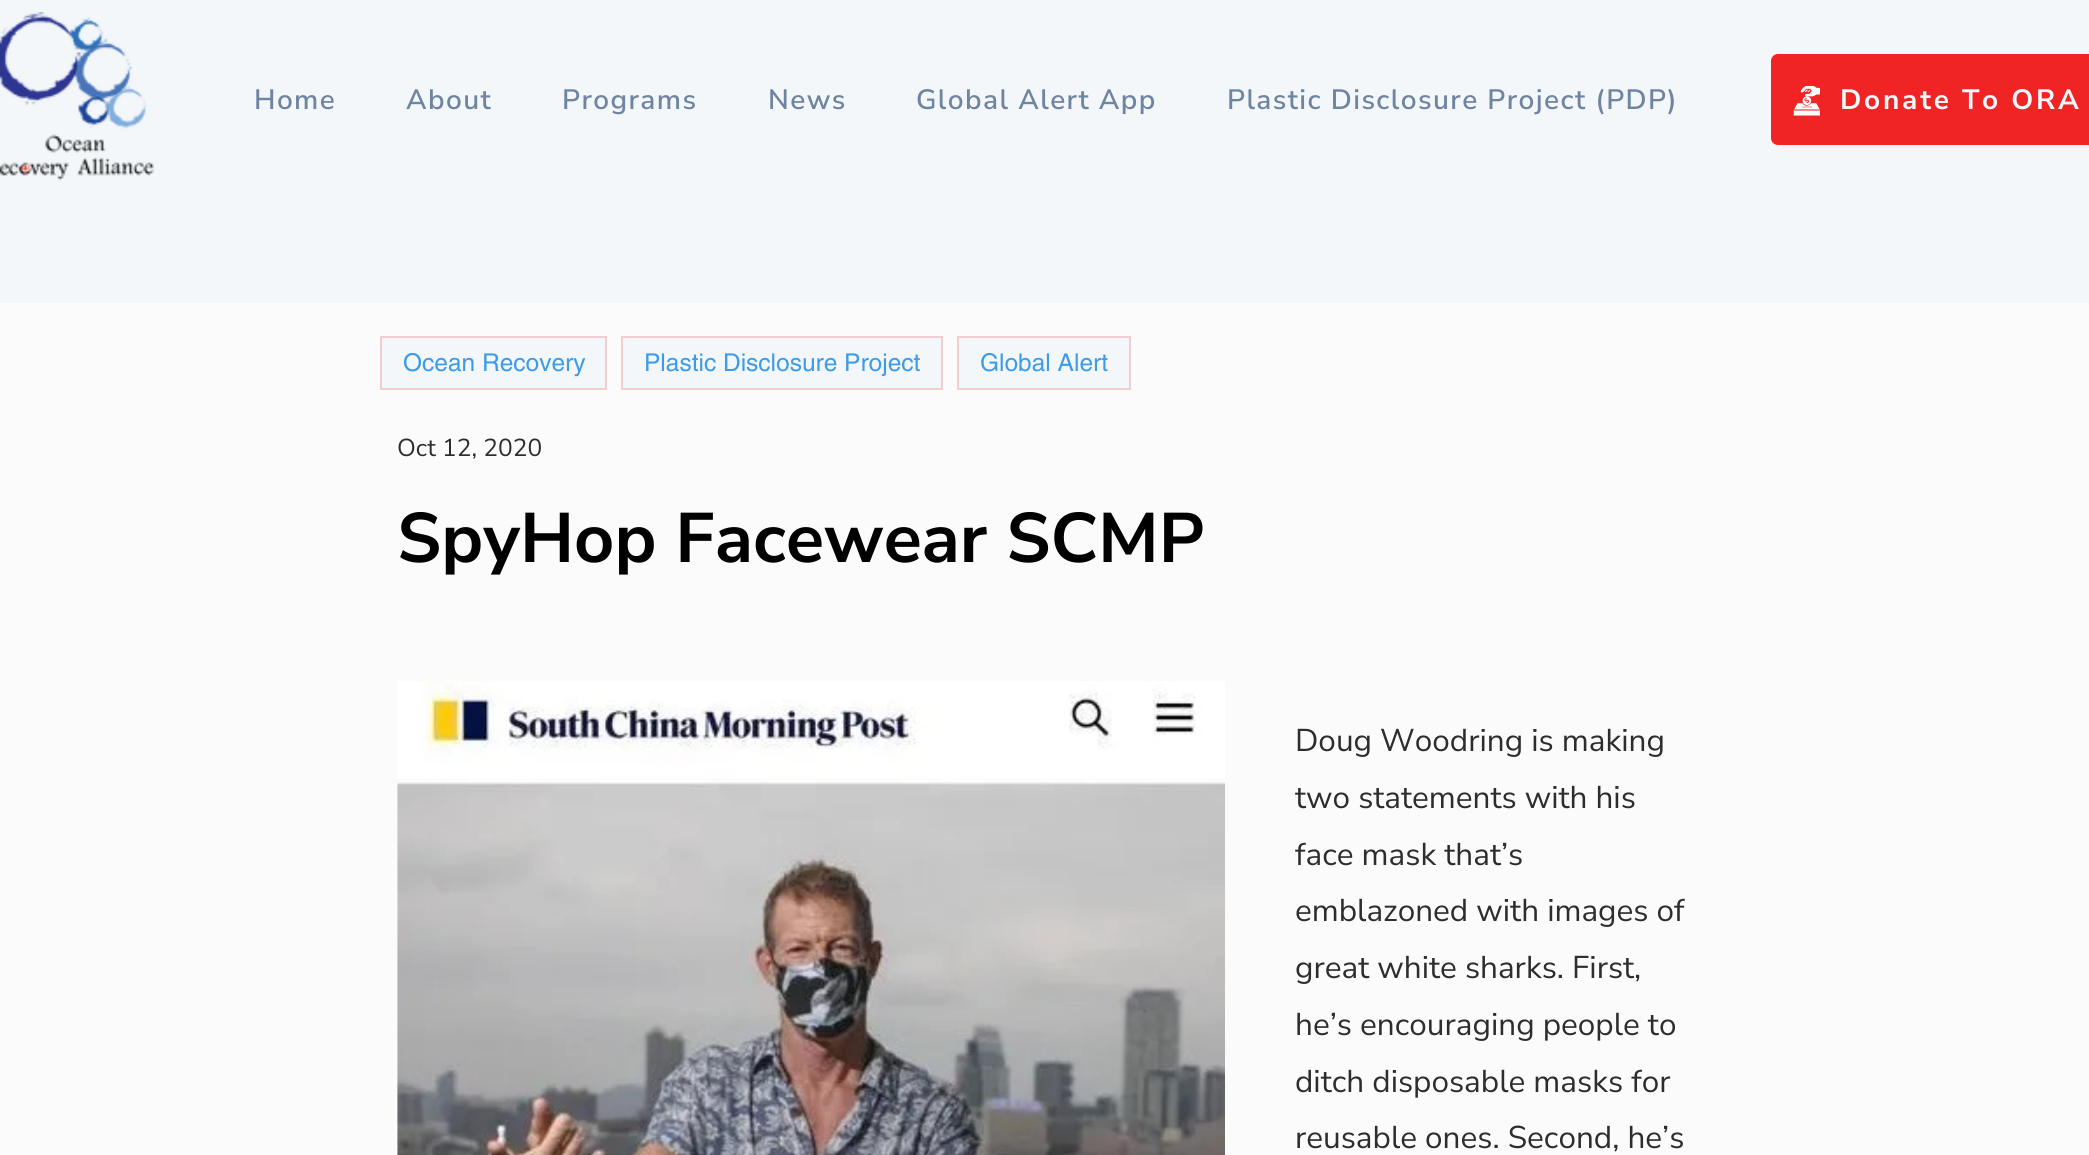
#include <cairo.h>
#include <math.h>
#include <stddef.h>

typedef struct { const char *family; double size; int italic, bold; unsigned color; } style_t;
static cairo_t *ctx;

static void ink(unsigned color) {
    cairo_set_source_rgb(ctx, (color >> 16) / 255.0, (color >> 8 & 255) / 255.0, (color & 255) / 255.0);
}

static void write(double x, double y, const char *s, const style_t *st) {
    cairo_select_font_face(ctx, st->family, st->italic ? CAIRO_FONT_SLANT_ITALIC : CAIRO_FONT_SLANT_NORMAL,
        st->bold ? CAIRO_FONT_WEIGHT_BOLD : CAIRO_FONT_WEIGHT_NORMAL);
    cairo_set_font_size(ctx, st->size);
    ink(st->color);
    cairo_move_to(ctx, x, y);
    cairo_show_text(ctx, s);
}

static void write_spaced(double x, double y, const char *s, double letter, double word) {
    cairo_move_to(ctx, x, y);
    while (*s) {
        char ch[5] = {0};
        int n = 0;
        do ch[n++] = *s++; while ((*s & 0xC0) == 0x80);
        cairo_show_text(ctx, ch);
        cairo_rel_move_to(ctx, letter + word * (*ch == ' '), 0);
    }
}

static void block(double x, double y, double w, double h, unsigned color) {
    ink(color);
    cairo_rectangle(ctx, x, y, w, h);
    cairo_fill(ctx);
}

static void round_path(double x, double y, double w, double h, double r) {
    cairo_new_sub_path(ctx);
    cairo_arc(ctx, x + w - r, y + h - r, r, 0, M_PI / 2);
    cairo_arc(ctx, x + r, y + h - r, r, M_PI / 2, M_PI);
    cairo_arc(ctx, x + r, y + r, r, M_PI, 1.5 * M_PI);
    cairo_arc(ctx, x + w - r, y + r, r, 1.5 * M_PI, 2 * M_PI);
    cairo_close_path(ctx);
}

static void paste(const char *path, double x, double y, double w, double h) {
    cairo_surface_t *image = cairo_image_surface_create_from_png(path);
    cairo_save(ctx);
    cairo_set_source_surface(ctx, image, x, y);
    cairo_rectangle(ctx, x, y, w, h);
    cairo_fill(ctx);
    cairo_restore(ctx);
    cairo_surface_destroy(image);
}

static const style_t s1 = {"helvetica", 24.5, 0, 0, 0x3d9be9};
static const style_t s2 = {"Nunito Sans", 24.5, 0, 0, 0x2d2d2d};
static const style_t s3 = {"Nunito Sans", 70, 0, 1, 0x000000};
static const style_t s4 = {"Nunito Sans", 31.5, 0, 0, 0x2d2d2d};

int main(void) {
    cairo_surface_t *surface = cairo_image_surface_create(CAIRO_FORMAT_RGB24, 2089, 1155);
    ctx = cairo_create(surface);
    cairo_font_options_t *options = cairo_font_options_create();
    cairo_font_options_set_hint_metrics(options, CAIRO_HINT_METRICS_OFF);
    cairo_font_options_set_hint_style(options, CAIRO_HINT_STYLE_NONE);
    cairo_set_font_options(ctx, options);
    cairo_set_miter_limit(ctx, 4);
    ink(0xfbfbfb);
    cairo_paint(ctx);
    block(0, 0, 2089, 303, 0xf3f7fa);
    paste("pic1.png", 0, 12, 154, 169);
    cairo_select_font_face(ctx, "Nunito Sans SemiBold", CAIRO_FONT_SLANT_NORMAL, CAIRO_FONT_WEIGHT_NORMAL);
    cairo_set_font_size(ctx, 28);
    ink(0x6e84a1);
    write_spaced(254, 109, "Home", 1.4, 0);
    write_spaced(406, 109, "About", 1.4, 0);
    write_spaced(562, 109, "Programs", 1.4, 0);
    write_spaced(768, 109, "News", 1.4, 0);
    write_spaced(916, 109, "Global Alert App", 1.4, 0);
    write_spaced(1227, 109, "Plastic Disclosure Project (PDP)", 1.4, 0);
    ink(0xf02424);
    round_path(1771, 54, 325, 91, 7);
    cairo_fill(ctx);
    paste("pic2.png", 1793, 86, 27, 30);
    cairo_select_font_face(ctx, "Nunito Sans", CAIRO_FONT_SLANT_NORMAL, CAIRO_FONT_WEIGHT_BOLD);
    ink(0xf3f7fa);
    write_spaced(1840, 109, "Donate To ORA", 2.75, 0);
    cairo_rectangle(ctx, 381, 337, 225, 52);
    cairo_fill_preserve(ctx);
    ink(0xf2cdcf);
    cairo_stroke(ctx);
    write(403, 371, "Ocean Recovery", &s1);
    ink(0xf3f7fa);
    cairo_rectangle(ctx, 622, 337, 320, 52);
    cairo_fill_preserve(ctx);
    ink(0xf2cdcf);
    cairo_stroke(ctx);
    write(644, 371, "Plastic Disclosure Project", &s1);
    ink(0xf3f7fa);
    cairo_rectangle(ctx, 958, 337, 172, 52);
    cairo_fill_preserve(ctx);
    ink(0xf2cdcf);
    cairo_stroke(ctx);
    write(980, 371, "Global Alert", &s1);
    write(397, 456, "Oct 12, 2020", &s2);
    write(397, 562, "SpyHop Facewear SCMP", &s3);
    paste("pic3.png", 397, 681, 828, 474);
    write(1295, 751, "Doug Woodring is making", &s4);
    write(1295, 808, "two statements with his", &s4);
    write(1295, 865, "face mask that’s", &s4);
    write(1295, 921, "emblazoned with images of", &s4);
    write(1295, 978, "great white sharks. First,", &s4);
    write(1295, 1035, "he’s encouraging people to", &s4);
    write(1295, 1092, "ditch disposable masks for", &s4);
    write(1295, 1148, "reusable ones. Second, he’s", &s4);
    cairo_surface_write_to_png(surface, "screenshot.png");
    cairo_font_options_destroy(options);
    cairo_destroy(ctx);
    cairo_surface_destroy(surface);
    return 0;
}
